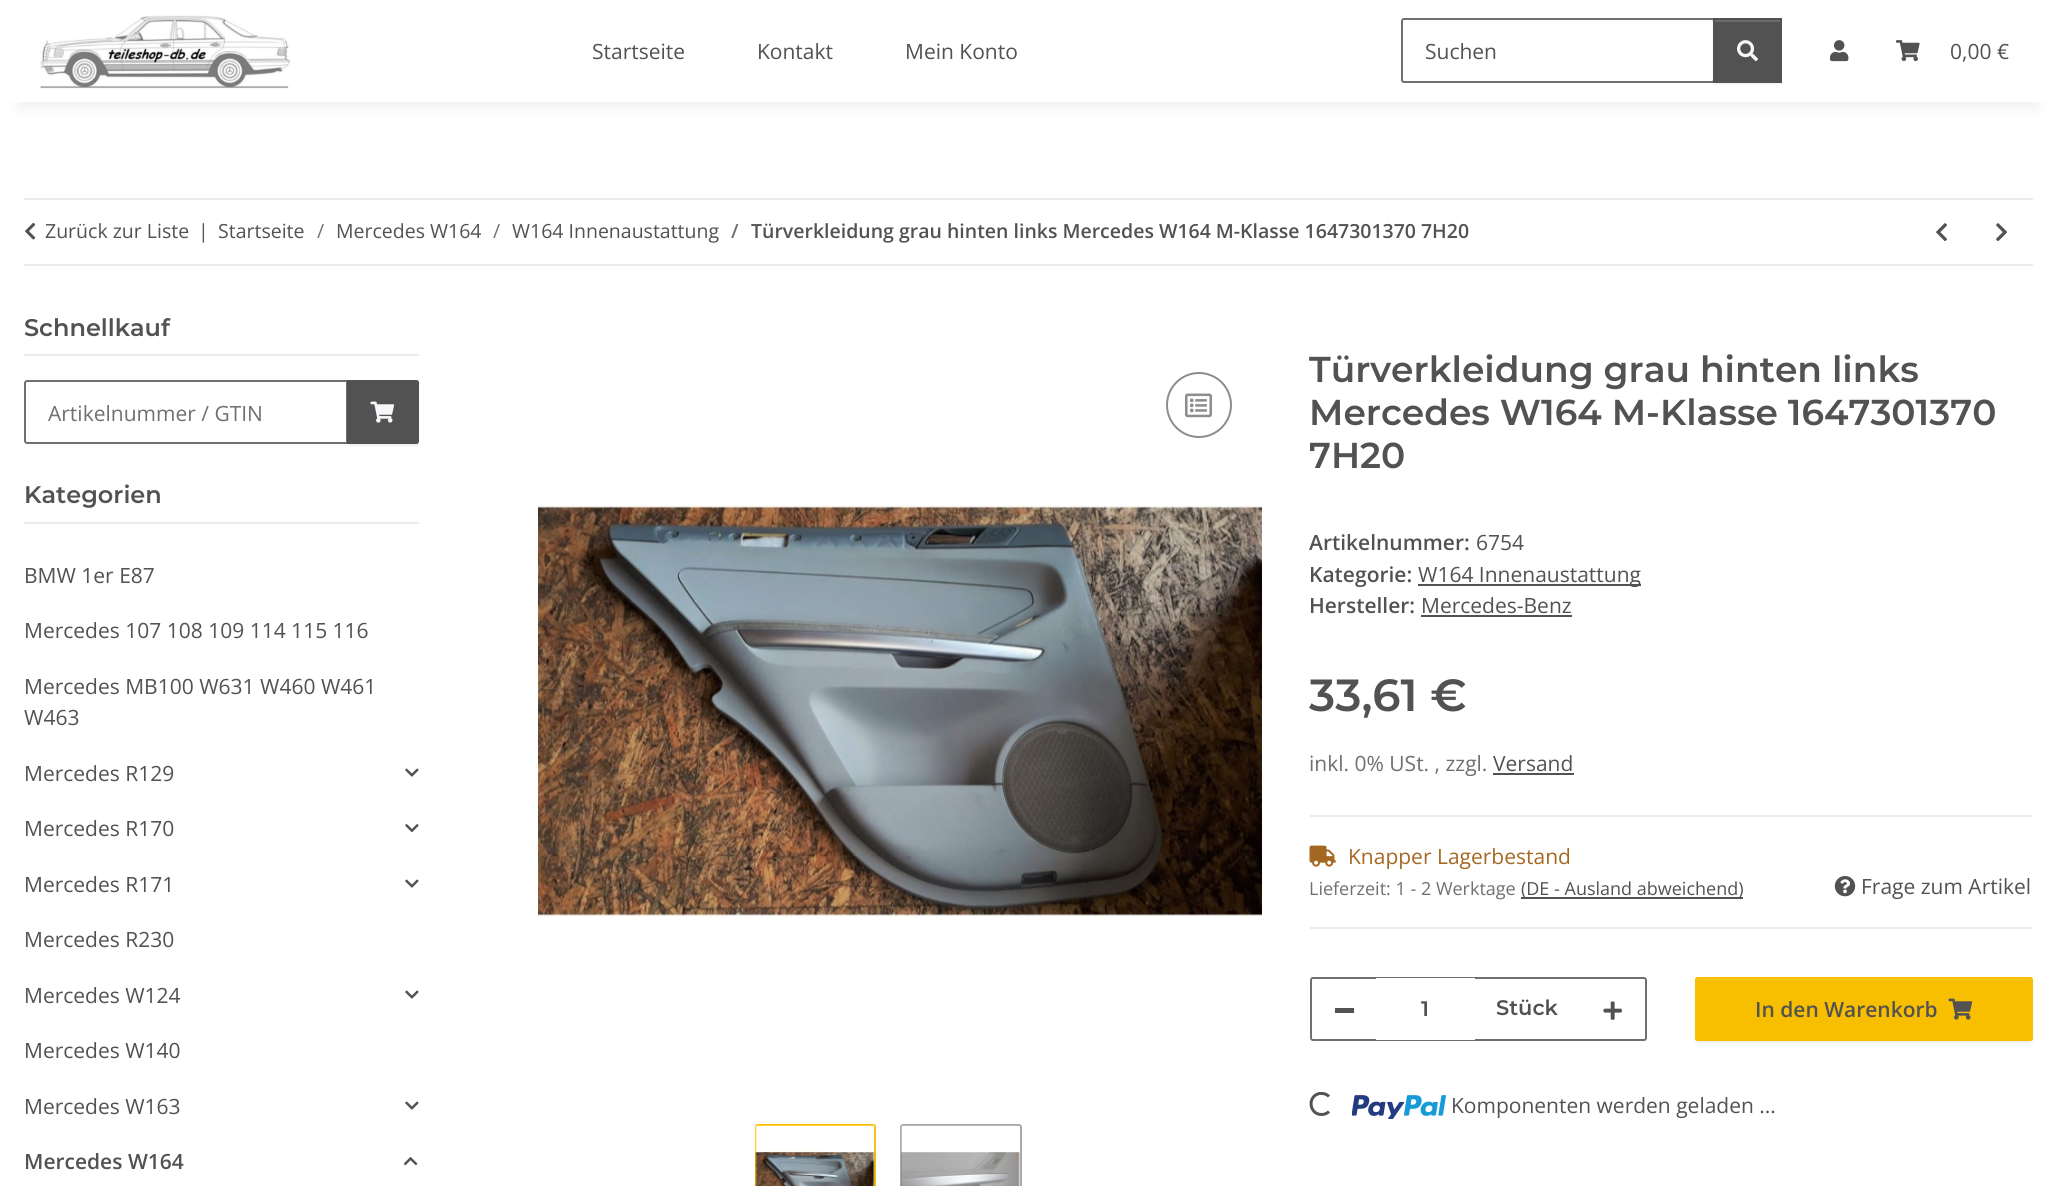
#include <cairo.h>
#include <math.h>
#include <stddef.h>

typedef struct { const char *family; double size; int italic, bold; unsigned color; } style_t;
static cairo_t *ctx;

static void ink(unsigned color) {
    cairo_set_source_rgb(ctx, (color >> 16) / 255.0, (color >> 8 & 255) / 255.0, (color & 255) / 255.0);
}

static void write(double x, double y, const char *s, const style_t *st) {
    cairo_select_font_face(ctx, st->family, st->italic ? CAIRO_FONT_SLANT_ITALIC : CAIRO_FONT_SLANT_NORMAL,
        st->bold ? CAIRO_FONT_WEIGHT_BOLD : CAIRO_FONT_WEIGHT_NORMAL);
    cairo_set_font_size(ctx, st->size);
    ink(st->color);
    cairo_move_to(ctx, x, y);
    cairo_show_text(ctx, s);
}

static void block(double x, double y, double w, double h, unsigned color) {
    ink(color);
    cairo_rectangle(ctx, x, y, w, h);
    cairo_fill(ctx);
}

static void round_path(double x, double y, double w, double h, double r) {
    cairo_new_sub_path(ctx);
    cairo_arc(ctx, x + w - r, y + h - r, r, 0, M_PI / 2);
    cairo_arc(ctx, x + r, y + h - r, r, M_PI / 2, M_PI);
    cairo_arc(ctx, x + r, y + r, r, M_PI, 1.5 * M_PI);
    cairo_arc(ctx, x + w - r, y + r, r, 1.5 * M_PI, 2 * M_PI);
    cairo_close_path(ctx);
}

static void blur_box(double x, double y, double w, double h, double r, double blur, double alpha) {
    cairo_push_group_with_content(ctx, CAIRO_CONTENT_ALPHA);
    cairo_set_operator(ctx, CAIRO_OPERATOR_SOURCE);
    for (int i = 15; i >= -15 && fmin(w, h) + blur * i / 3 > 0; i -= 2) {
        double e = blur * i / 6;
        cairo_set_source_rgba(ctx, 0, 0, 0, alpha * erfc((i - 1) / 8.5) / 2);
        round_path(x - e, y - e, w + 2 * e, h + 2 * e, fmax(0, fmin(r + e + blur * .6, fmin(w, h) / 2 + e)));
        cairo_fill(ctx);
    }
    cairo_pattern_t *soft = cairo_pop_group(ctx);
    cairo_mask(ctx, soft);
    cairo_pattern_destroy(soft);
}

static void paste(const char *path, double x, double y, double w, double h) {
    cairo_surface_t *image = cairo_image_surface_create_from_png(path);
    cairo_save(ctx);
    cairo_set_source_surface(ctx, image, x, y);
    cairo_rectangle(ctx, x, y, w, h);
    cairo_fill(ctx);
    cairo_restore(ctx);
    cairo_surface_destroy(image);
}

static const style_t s1 = {"Open Sans", 21, 0, 0, 0x525252};
static const style_t s2 = {"Open Sans", 19.5, 0, 0, 0x525252};
static const style_t s3 = {"Open Sans", 19.5, 0, 0, 0x707070};
static const style_t s4 = {"Open Sans SemiBold", 19.5, 0, 0, 0x707070};
static const style_t s5 = {"Open Sans SemiBold", 19.5, 0, 0, 0x525252};
static const style_t s6 = {"Montserrat SemiBold", 24, 0, 0, 0x525252};
static const style_t s7 = {"Open Sans", 21, 0, 0, 0x707070};
static const style_t s8 = {"Open Sans SemiBold", 21, 0, 0, 0x525252};
static const style_t s9 = {"Montserrat SemiBold", 36, 0, 0, 0x525252};
static const style_t s10 = {"Montserrat SemiBold", 45, 0, 0, 0x525252};
static const style_t s11 = {"Open Sans", 21, 0, 0, 0xa56823};
static const style_t s12 = {"Open Sans", 18, 0, 0, 0x707070};
static const style_t s13 = {"Open Sans", 18, 0, 0, 0x525252};
static const style_t s14 = {"Montserrat SemiBold", 21, 0, 0, 0x525252};

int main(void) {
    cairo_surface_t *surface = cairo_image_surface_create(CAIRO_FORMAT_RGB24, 2056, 1186);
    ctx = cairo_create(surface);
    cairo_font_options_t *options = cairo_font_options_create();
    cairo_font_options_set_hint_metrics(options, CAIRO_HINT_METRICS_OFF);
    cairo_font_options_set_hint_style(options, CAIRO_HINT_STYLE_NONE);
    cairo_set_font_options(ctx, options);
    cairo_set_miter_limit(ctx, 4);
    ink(0xffffff);
    cairo_paint(ctx);
    ink(0x000000);
    blur_box(18, 42, 2021, 66, 0, 7, 0.06);
    block(11, 35, 2035, 67, 0xffffff);
    paste("pic1.png", 40, 15, 250, 74);
    write(592, 59, "Startseite", &s1);
    write(757, 59, "Kontakt", &s1);
    write(905, 59, "Mein Konto", &s1);
    round_path(1402, 19, 312, 63, 2);
    ink(0x707070);
    cairo_stroke(ctx);
    write(1425, 59, "Suchen", &s1);
    ink(0x000000);
    blur_box(1713, 20, 69, 64, 0, 1, 0.07);
    block(1715, 22, 65, 59, 0x525252);
    block(1715, 20, 66, 2, 0x6c6c6c);
    cairo_rectangle(ctx, 1714, 19, 67, 63);
    ink(0x525252);
    cairo_stroke(ctx);
    paste("pic2.png", 1737, 40, 21, 22);
    paste("pic3.png", 1830, 40, 19, 22);
    paste("pic4.png", 1896, 40, 24, 22);
    write(1950, 59, "0,00 €", &s1);
    block(24, 198, 2009, 2, 0xebebeb);
    block(24, 264, 2009, 2, 0xebebeb);
    paste("pic5.png", 25, 222, 11, 18);
    write(45, 238, "Zurück zur Liste", &s2);
    write(198, 238, "|", &s2);
    write(218, 238, "Startseite", &s2);
    write(317, 238, "/", &s3);
    write(336, 238, "Mercedes W164", &s2);
    write(493, 238, "/", &s3);
    write(512, 238, "W164 Innenaustattung", &s2);
    write(731, 238, "/", &s4);
    write(751, 238, "Türverkleidung grau hinten links Mercedes W164 M-Klasse 1647301370 7H20", &s5);
    paste("pic6.png", 1936, 223, 11, 18);
    paste("pic7.png", 1996, 223, 11, 18);
    block(24, 354, 395, 2, 0xebebeb);
    write(24, 336, "Schnellkauf", &s6);
    cairo_new_path(ctx);
    cairo_move_to(ctx, 27, 381);
    cairo_line_to(ctx, 347, 381);
    cairo_line_to(ctx, 347, 443);
    cairo_line_to(ctx, 27, 443);
    cairo_curve_to(ctx, 26, 443, 25, 442, 25, 441);
    cairo_line_to(ctx, 25, 383);
    cairo_curve_to(ctx, 25, 382, 26, 381, 27, 381);
    cairo_close_path(ctx);
    ink(0x707070);
    cairo_stroke(ctx);
    write(48, 421, "Artikelnummer / GTIN", &s7);
    ink(0x000000);
    blur_box(347, 381, 72, 65, 3, 1, 0.07);
    ink(0x525252);
    cairo_new_path(ctx);
    cairo_move_to(ctx, 347, 380);
    cairo_line_to(ctx, 416, 380);
    cairo_curve_to(ctx, 417.5, 380, 419, 381.5, 419, 383);
    cairo_line_to(ctx, 419, 441);
    cairo_curve_to(ctx, 419, 442.5, 417.5, 444, 416, 444);
    cairo_line_to(ctx, 347, 444);
    cairo_close_path(ctx);
    cairo_fill(ctx);
    ink(0x6c6c6c);
    cairo_new_path(ctx);
    cairo_move_to(ctx, 348, 382);
    cairo_line_to(ctx, 416, 382);
    cairo_line_to(ctx, 417, 384);
    cairo_line_to(ctx, 417, 382);
    cairo_curve_to(ctx, 417, 382, 416, 381, 416, 381);
    cairo_line_to(ctx, 348, 381);
    cairo_close_path(ctx);
    cairo_fill(ctx);
    cairo_new_path(ctx);
    cairo_move_to(ctx, 348, 381);
    cairo_line_to(ctx, 416, 381);
    cairo_curve_to(ctx, 417, 381, 418, 382, 418, 383);
    cairo_line_to(ctx, 418, 441);
    cairo_curve_to(ctx, 418, 442, 417, 443, 416, 443);
    cairo_line_to(ctx, 348, 443);
    cairo_close_path(ctx);
    ink(0x525252);
    cairo_stroke(ctx);
    paste("pic8.png", 370, 401, 25, 22);
    block(24, 522, 395, 2, 0xebebeb);
    write(24, 503, "Kategorien", &s6);
    write(24, 583, "BMW 1er E87", &s1);
    write(24, 638, "Mercedes 107 108 109 114 115 116", &s1);
    write(24, 694, "Mercedes MB100 W631 W460 W461", &s1);
    write(24, 725, "W463", &s1);
    write(24, 781, "Mercedes R129", &s1);
    paste("pic9.png", 405, 768, 14, 9);
    write(24, 836, "Mercedes R170", &s1);
    paste("pic10.png", 405, 824, 14, 9);
    write(24, 892, "Mercedes R171", &s1);
    paste("pic9.png", 405, 879, 14, 9);
    write(24, 947, "Mercedes R230", &s1);
    write(24, 1003, "Mercedes W124", &s1);
    paste("pic9.png", 405, 990, 14, 9);
    write(24, 1058, "Mercedes W140", &s1);
    write(24, 1114, "Mercedes W163", &s1);
    paste("pic9.png", 405, 1101, 14, 9);
    write(24, 1169, "Mercedes W164", &s8);
    paste("pic11.png", 403, 1157, 15, 9);
    cairo_arc(ctx, 1199, 405, 32, 0, 2 * M_PI);
    ink(0x8d8d8d);
    cairo_stroke(ctx);
    paste("pic12.png", 1185, 393, 27, 25);
    paste("pic13.png", 538, 505, 724, 412);
    round_path(756, 1125, 119, 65, 2);
    ink(0xf8bf00);
    cairo_stroke(ctx);
    paste("pic14.png", 755, 1125, 120, 61);
    round_path(901, 1125, 120, 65, 2);
    ink(0xa9a9a9);
    cairo_stroke(ctx);
    paste("pic15.png", 901, 1125, 119, 61);
    write(1309, 382, "Türverkleidung grau hinten links", &s9);
    write(1309, 425, "Mercedes W164 M-Klasse 1647301370", &s9);
    write(1309, 468, "7H20", &s9);
    write(1309, 550, "Artikelnummer:", &s8);
    write(1476, 550, "6754", &s1);
    write(1309, 582, "Kategorie:", &s8);
    block(1418, 584, 223, 2, 0x525252);
    write(1418, 582, "W164 Innenaustattung", &s1);
    write(1309, 613, "Hersteller:", &s8);
    write(1421, 613, "Mercedes-Benz", &s1);
    block(1421, 615, 151, 2, 0x525252);
    write(1309, 711, "33,61 €", &s10);
    write(1309, 771, "inkl. 0% USt. , zzgl.", &s7);
    write(1493, 771, "Versand", &s1);
    block(1493, 773, 81, 2, 0x525252);
    block(1310, 815, 723, 2, 0xebebeb);
    block(1310, 927, 723, 2, 0xebebeb);
    paste("pic16.png", 1309, 845, 27, 22);
    write(1348, 864, "Knapper Lagerbestand", &s11);
    write(1309, 895, "Lieferzeit: 1 - 2 Werktage", &s12);
    block(1521, 897, 222, 2, 0x525252);
    write(1521, 895, "(DE - Ausland abweichend)", &s13);
    paste("pic17.png", 1834, 876, 22, 21);
    write(1861, 894, "Frage zum Artikel", &s1);
    round_path(1311, 978, 335, 62, 2);
    ink(0x707070);
    cairo_stroke(ctx);
    block(1335, 1008, 19, 5, 0x525252);
    block(1376, 978, 99, 62, 0xffffff);
    write(1421, 1016, "1", &s14);
    write(1496, 1015, "Stück", &s14);
    paste("pic18.png", 1603, 1001, 19, 19);
    ink(0x000000);
    blur_box(1695, 978, 338, 65, 3, 1, 0.07);
    ink(0xf8bf00);
    round_path(1695, 977, 338, 64, 3);
    cairo_fill(ctx);
    ink(0xf9c926);
    cairo_new_path(ctx);
    cairo_move_to(ctx, 1698, 980);
    cairo_line_to(ctx, 2030, 980);
    cairo_line_to(ctx, 2031, 981);
    cairo_line_to(ctx, 2031, 978);
    cairo_line_to(ctx, 2030, 978);
    cairo_line_to(ctx, 1698, 978);
    cairo_curve_to(ctx, 1697, 978, 1697, 979, 1697, 980);
    cairo_close_path(ctx);
    cairo_fill(ctx);
    round_path(1696, 978, 336, 62, 2);
    ink(0xf8bf00);
    cairo_stroke(ctx);
    write(1755, 1017, "In den Warenkorb", &s8);
    paste("pic19.png", 1948, 998, 25, 22);
    cairo_new_path(ctx);
    cairo_move_to(ctx, 1329, 1111.5);
    cairo_curve_to(ctx, 1327, 1113.5, 1324.5, 1114.5, 1321.5, 1114.5);
    cairo_curve_to(ctx, 1309, 1114.5, 1307, 1096, 1319.5, 1093.5);
    cairo_curve_to(ctx, 1323, 1093, 1326.5, 1094, 1329, 1096.5);
    cairo_set_line_width(ctx, 3);
    cairo_stroke(ctx);
    paste("pic20.png", 1352, 1095, 94, 24);
    write(1451, 1113, "Komponenten werden geladen ...", &s1);
    cairo_surface_write_to_png(surface, "screenshot.png");
    cairo_font_options_destroy(options);
    cairo_destroy(ctx);
    cairo_surface_destroy(surface);
    return 0;
}
